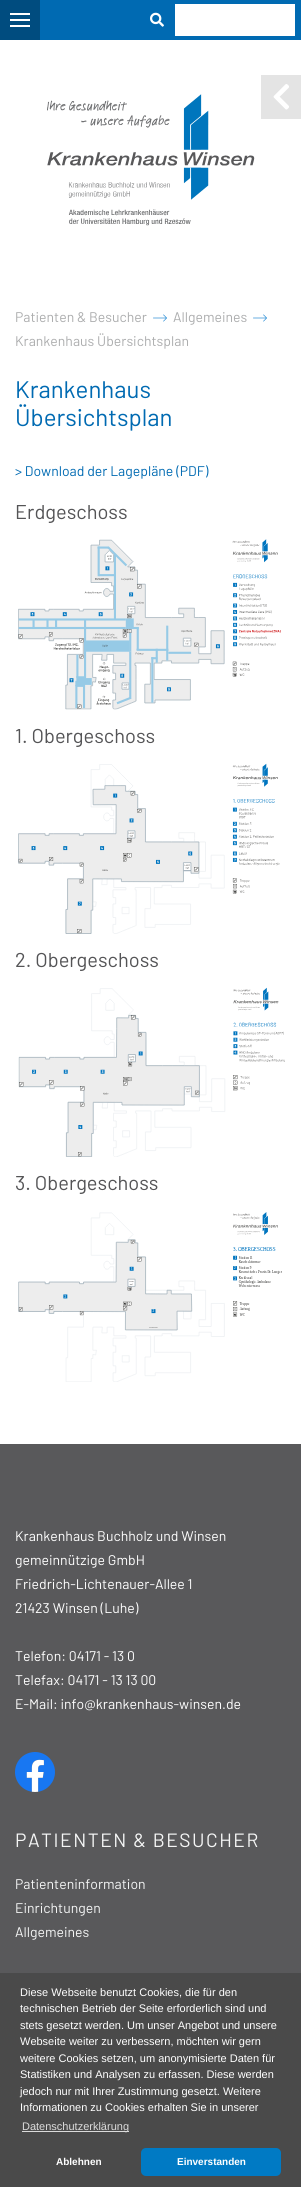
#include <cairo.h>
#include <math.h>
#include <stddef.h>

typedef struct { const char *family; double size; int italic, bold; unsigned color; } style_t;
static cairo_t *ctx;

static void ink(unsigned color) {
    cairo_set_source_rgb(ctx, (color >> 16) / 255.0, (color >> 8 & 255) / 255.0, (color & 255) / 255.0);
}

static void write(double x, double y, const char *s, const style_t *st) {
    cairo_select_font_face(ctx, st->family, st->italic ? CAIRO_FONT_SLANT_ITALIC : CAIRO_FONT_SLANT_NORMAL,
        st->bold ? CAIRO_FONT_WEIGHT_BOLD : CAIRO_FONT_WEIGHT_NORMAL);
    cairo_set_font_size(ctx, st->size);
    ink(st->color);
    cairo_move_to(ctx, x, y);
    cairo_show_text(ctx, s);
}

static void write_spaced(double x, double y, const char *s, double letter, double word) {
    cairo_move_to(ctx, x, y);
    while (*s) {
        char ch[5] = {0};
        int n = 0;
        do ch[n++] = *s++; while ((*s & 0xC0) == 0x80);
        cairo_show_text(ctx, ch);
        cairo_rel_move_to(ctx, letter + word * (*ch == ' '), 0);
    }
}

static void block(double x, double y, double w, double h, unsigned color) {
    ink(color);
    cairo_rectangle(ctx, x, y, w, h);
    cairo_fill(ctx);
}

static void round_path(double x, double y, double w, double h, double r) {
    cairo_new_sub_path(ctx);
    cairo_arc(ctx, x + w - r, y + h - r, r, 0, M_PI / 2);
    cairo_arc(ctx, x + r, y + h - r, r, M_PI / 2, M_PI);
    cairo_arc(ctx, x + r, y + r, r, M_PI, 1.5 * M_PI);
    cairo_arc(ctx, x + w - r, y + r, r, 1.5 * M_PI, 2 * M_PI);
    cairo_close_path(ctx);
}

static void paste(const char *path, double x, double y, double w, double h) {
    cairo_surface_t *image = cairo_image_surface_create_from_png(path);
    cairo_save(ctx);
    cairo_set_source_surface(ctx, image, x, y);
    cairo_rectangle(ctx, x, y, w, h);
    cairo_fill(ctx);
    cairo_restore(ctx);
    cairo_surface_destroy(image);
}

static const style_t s1 = {"Barlow", 14, 0, 0, 0xacadae};
static const style_t s2 = {"Barlow", 24, 0, 0, 0x006ab2};
static const style_t s3 = {"Barlow", 14, 0, 0, 0x006ab2};
static const style_t s4 = {"Barlow", 20, 0, 0, 0x545456};
static const style_t s5 = {"Barlow", 14, 0, 0, 0xffffff};
static const style_t s6 = {"Barlow", 14, 0, 0, 0xf5f6f6};
static const style_t s7 = {"Liberation Sans", 11, 0, 0, 0xffffff};
static const style_t s8 = {"Liberation Sans", 11, 0, 0, 0xdbdbdb};
static const style_t s9 = {"Liberation Sans", 10, 0, 1, 0xffffff};

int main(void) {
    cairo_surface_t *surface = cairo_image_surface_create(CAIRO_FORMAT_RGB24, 301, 2187);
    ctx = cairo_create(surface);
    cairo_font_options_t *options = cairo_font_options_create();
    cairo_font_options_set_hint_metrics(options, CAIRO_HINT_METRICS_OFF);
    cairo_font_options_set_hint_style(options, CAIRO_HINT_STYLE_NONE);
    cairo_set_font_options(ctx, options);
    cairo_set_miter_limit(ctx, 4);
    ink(0xffffff);
    cairo_paint(ctx);
    block(40, 0, 261, 40, 0x006ab2);
    block(0, 0, 40, 40, 0x004c7f);
    block(10, 13, 20, 2, 0xffffff);
    block(10, 19, 20, 2, 0xffffff);
    block(10, 25, 20, 2, 0xffffff);
    paste("pic1.png", 150, 12, 14, 15);
    block(175, 4, 120, 32, 0xffffff);
    paste("pic2.png", 47, 94, 208, 132);
    block(261, 75, 40, 44, 0xe4e4e4);
    paste("pic3.png", 273, 84, 16, 26);
    write(15, 322, "Patienten & Besucher", &s1);
    paste("pic4.png", 153, 314, 14, 8);
    write(173, 322, "Allgemeines", &s1);
    paste("pic4.png", 253, 314, 14, 8);
    write(15, 346, "Krankenhaus Übersichtsplan", &s1);
    write(15, 398, "Krankenhaus", &s2);
    write(15, 426, "Übersichtsplan", &s2);
    write(15, 476, "> Download der Lagepläne (PDF)", &s3);
    write(15, 519, "Erdgeschoss", &s4);
    paste("pic5.png", 18, 539, 263, 171);
    write(15, 743, "1. Obergeschoss", &s4);
    paste("pic6.png", 18, 763, 262, 171);
    write(15, 967, "2. Obergeschoss", &s4);
    paste("pic7.png", 18, 987, 267, 170);
    write(15, 1190, "3. Obergeschoss", &s4);
    paste("pic8.png", 18, 1212, 264, 170);
    block(0, 1444, 301, 529, 0x59595b);
    write(15, 1541, "Krankenhaus Buchholz und Winsen", &s5);
    write(15, 1565, "gemeinnützige GmbH", &s5);
    write(15, 1589, "Friedrich-Lichtenauer-Allee 1", &s5);
    write(15, 1613, "21423 Winsen (Luhe)", &s5);
    write(15, 1661, "Telefon: 04171 - 13 0", &s5);
    write(15, 1685, "Telefax: 04171 - 13 13 00", &s5);
    write(15, 1709, "E-Mail: info@krankenhaus-winsen.de", &s5);
    paste("pic9.png", 15, 1752, 40, 40);
    cairo_set_font_size(ctx, 19.25);
    ink(0xf5f6f6);
    write_spaced(15, 1847, "PATIENTEN & BESUCHER", 1.5, 0);
    write(15, 1889, "Patienteninformation", &s6);
    write(15, 1913, "Einrichtungen", &s6);
    write(15, 1937, "Allgemeines", &s6);
    block(0, 1973, 301, 214, 0x4a4a4a);
    write(20, 1996, "Diese Webseite benutzt Cookies, die für den", &s7);
    write(20, 2012, "technischen Betrieb der Seite erforderlich sind und", &s7);
    write(20, 2029, "stets gesetzt werden. Um unser Angebot und unsere", &s7);
    write(20, 2045, "Webseite weiter zu verbessern, möchten wir gern", &s7);
    write(20, 2062, "weitere Cookies setzen, um anonymisierte Daten für", &s7);
    write(20, 2078, "Statistiken und Analysen zu erfassen. Diese werden", &s7);
    write(20, 2095, "jedoch nur mit Ihrer Zustimmung gesetzt. Weitere", &s7);
    write(20, 2111, "Informationen zu Cookies erhalten Sie in unserer", &s7);
    block(22, 2131, 107, 1, 0xdbdbdb);
    write(22, 2130, "Datenschutzerklärung", &s8);
    write(56, 2165, "Ablehnen", &s9);
    ink(0x007ac4);
    round_path(141, 2148, 140, 28, 5);
    cairo_fill(ctx);
    write(177, 2165, "Einverstanden", &s9);
    cairo_surface_write_to_png(surface, "screenshot.png");
    cairo_font_options_destroy(options);
    cairo_destroy(ctx);
    cairo_surface_destroy(surface);
    return 0;
}
